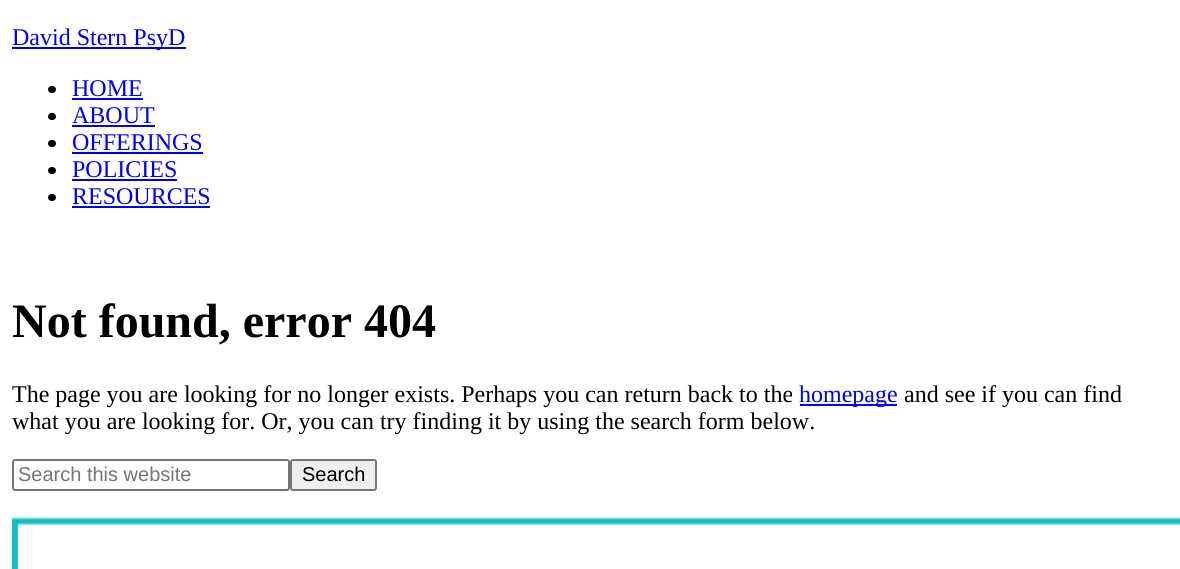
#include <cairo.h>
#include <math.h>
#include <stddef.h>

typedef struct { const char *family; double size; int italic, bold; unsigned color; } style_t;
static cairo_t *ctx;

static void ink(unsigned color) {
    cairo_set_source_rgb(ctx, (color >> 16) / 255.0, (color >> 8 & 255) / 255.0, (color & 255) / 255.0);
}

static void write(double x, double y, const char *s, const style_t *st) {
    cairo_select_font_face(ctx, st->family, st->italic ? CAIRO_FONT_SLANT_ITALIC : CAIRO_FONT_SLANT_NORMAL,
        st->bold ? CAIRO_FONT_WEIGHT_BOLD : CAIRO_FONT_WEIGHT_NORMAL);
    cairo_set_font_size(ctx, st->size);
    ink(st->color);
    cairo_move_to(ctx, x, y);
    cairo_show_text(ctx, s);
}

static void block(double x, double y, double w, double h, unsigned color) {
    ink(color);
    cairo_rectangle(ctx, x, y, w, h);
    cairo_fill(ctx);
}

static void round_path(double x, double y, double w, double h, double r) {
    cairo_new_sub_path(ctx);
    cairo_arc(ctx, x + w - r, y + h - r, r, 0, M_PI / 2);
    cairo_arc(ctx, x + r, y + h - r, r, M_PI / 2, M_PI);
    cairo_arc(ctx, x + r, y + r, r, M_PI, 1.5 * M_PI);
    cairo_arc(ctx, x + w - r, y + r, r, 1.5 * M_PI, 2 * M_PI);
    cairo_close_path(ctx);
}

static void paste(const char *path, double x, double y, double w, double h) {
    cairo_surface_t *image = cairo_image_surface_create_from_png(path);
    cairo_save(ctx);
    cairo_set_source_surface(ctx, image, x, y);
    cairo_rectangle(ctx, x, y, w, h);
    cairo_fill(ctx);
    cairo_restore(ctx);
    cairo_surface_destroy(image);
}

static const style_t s1 = {"Liberation Serif", 24, 0, 0, 0x0000ee};
static const style_t s2 = {"Liberation Serif", 48, 0, 1, 0x000000};
static const style_t s3 = {"Liberation Serif", 24, 0, 0, 0x000000};
static const style_t s4 = {"Liberation Sans", 20, 0, 0, 0x757575};
static const style_t s5 = {"Liberation Sans", 20, 0, 0, 0x000000};

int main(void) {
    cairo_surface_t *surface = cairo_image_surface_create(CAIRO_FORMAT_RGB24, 1180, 569);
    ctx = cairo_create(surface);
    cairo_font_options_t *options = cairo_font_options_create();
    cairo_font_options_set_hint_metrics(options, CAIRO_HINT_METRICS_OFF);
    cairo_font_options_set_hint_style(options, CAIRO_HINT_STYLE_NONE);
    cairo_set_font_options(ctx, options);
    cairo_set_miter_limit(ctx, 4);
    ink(0xffffff);
    cairo_paint(ctx);
    block(12, 47, 174, 2, 0x0000ee);
    write(12, 45, "David Stern PsyD", &s1);
    ink(0x000000);
    round_path(48, 86, 8, 7, 3.5);
    cairo_fill(ctx);
    write(72, 96, "HOME", &s1);
    block(72, 98, 71, 2, 0x0000ee);
    ink(0x000000);
    round_path(48, 113, 8, 7, 3.5);
    cairo_fill(ctx);
    write(72, 123, "ABOUT", &s1);
    block(72, 125, 83, 2, 0x0000ee);
    ink(0x000000);
    round_path(48, 140, 8, 7, 3.5);
    cairo_fill(ctx);
    write(72, 150, "OFFERINGS", &s1);
    block(72, 152, 131, 2, 0x0000ee);
    ink(0x000000);
    round_path(48, 167, 8, 7, 3.5);
    cairo_fill(ctx);
    write(72, 177, "POLICIES", &s1);
    block(72, 179, 105, 2, 0x0000ee);
    ink(0x000000);
    round_path(48, 194, 8, 7, 3.5);
    cairo_fill(ctx);
    write(72, 204, "RESOURCES", &s1);
    block(72, 206, 138, 2, 0x0000ee);
    write(12, 337, "Not found, error 404", &s2);
    write(12, 402, "The page you are looking for no longer exists. Perhaps you can return back to the", &s3);
    block(800, 404, 97, 2, 0x0000ee);
    write(799, 402, "homepage", &s1);
    write(904, 402, "and see if you can find", &s3);
    write(12, 429, "what you are looking for. Or, you can try finding it by using the search form below.", &s3);
    round_path(13, 460, 276, 30, 2);
    ink(0x767676);
    cairo_stroke(ctx);
    write(18, 481, "Search this website", &s4);
    ink(0xefefef);
    round_path(291, 460, 85, 30, 2);
    cairo_fill_preserve(ctx);
    ink(0x767676);
    cairo_stroke(ctx);
    write(302, 481, "Search", &s5);
    paste("pic1.png", 12, 517, 1168, 52);
    cairo_surface_write_to_png(surface, "screenshot.png");
    cairo_font_options_destroy(options);
    cairo_destroy(ctx);
    cairo_surface_destroy(surface);
    return 0;
}
